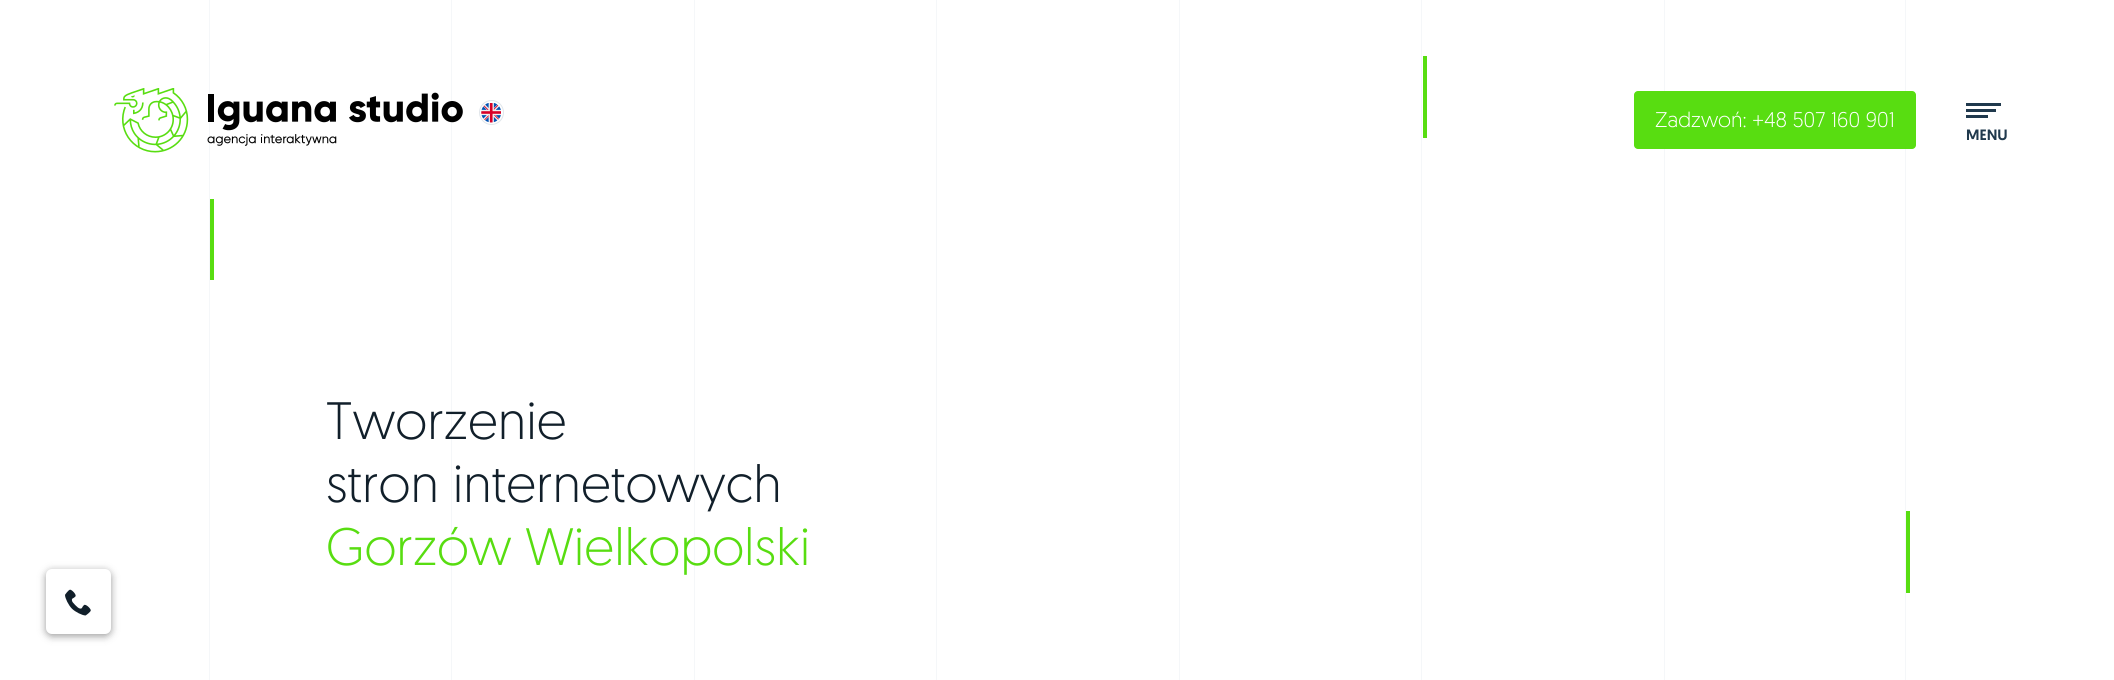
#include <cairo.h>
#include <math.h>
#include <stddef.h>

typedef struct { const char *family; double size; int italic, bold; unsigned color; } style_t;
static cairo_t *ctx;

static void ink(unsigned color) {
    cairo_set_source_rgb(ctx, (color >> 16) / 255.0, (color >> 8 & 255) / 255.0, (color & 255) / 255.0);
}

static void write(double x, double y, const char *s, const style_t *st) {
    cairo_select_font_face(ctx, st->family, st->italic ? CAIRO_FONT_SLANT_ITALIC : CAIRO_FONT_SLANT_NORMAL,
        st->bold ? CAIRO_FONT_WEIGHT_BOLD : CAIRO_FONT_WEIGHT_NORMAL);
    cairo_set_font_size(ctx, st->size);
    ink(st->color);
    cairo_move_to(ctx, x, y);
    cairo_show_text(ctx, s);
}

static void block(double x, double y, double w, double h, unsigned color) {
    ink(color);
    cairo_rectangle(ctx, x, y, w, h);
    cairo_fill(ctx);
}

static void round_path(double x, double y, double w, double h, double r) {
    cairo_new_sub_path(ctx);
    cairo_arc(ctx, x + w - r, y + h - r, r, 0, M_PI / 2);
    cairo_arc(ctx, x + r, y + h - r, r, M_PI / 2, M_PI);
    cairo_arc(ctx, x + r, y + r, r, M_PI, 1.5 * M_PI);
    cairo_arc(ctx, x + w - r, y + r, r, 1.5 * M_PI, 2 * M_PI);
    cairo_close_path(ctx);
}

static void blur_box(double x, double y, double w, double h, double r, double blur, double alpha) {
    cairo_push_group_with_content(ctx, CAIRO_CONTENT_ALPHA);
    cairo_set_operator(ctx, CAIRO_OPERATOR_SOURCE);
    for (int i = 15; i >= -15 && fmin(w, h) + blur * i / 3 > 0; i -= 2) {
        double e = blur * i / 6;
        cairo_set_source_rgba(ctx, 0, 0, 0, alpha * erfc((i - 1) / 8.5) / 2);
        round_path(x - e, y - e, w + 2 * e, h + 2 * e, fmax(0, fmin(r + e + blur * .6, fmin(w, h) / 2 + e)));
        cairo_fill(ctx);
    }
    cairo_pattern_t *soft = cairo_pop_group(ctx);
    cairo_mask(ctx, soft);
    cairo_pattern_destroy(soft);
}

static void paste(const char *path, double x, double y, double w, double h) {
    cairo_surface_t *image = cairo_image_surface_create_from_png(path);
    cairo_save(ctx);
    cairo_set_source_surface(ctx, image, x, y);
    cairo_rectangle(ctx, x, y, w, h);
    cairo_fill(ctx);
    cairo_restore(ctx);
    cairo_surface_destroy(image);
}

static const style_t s1 = {"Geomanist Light", 21.25, 0, 0, 0xffffff};
static const style_t s2 = {"Geomanist Medium", 15, 0, 0, 0x20394d};
static const style_t s3 = {"Geomanist Light", 52.5, 0, 0, 0x111f2a};
static const style_t s4 = {"Geomanist Light", 52.5, 0, 0, 0x58dd11};

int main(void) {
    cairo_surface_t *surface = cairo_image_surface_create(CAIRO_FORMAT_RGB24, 2114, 680);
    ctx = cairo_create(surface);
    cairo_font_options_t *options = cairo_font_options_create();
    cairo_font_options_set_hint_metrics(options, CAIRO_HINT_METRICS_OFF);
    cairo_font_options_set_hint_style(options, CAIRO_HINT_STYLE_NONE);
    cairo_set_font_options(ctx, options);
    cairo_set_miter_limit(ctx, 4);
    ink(0xffffff);
    cairo_paint(ctx);
    block(209, 0, 1, 680, 0xf5f7f9);
    block(210, 199, 4, 81, 0x58dd11);
    block(451, 0, 1, 680, 0xf5f7f9);
    block(694, 0, 1, 680, 0xf5f7f9);
    block(936, 0, 1, 680, 0xf5f7f9);
    block(1179, 0, 1, 680, 0xf5f7f9);
    block(1421, 0, 1, 680, 0xf5f7f9);
    block(1423, 56, 4, 82, 0x58dd11);
    block(1664, 0, 1, 680, 0xf5f7f9);
    block(1905, 0, 1, 680, 0xf5f7f9);
    block(1906, 511, 4, 82, 0x58dd11);
    paste("pic1.png", 114, 88, 349, 65);
    cairo_arc(ctx, 491.5, 112.5, 12, 0, 2 * M_PI);
    ink(0xe0e5ea);
    cairo_set_line_width(ctx, 1);
    cairo_stroke(ctx);
    paste("pic2.png", 481, 103, 20, 20);
    ink(0x58dd11);
    round_path(1634, 91, 282, 58, 4);
    cairo_fill(ctx);
    write(1655, 127, "Zadzwoń: +48 507 160 901", &s1);
    block(1966, 103, 35, 3, 0x20394d);
    block(1966, 109, 30, 3, 0x20394d);
    block(1966, 115, 22, 3, 0x20394d);
    write(1966, 140, "MENU", &s2);
    write(326, 439, "Tworzenie", &s3);
    write(326, 502, "stron internetowych", &s3);
    write(326, 565, "Gorzów Wielkopolski", &s4);
    ink(0x000000);
    blur_box(46, 571, 65, 65, 6, 4, 0.4);
    ink(0xffffff);
    round_path(46, 569, 65, 65, 6);
    cairo_fill(ctx);
    paste("pic3.png", 65, 589, 26, 27);
    cairo_surface_write_to_png(surface, "screenshot.png");
    cairo_font_options_destroy(options);
    cairo_destroy(ctx);
    cairo_surface_destroy(surface);
    return 0;
}
